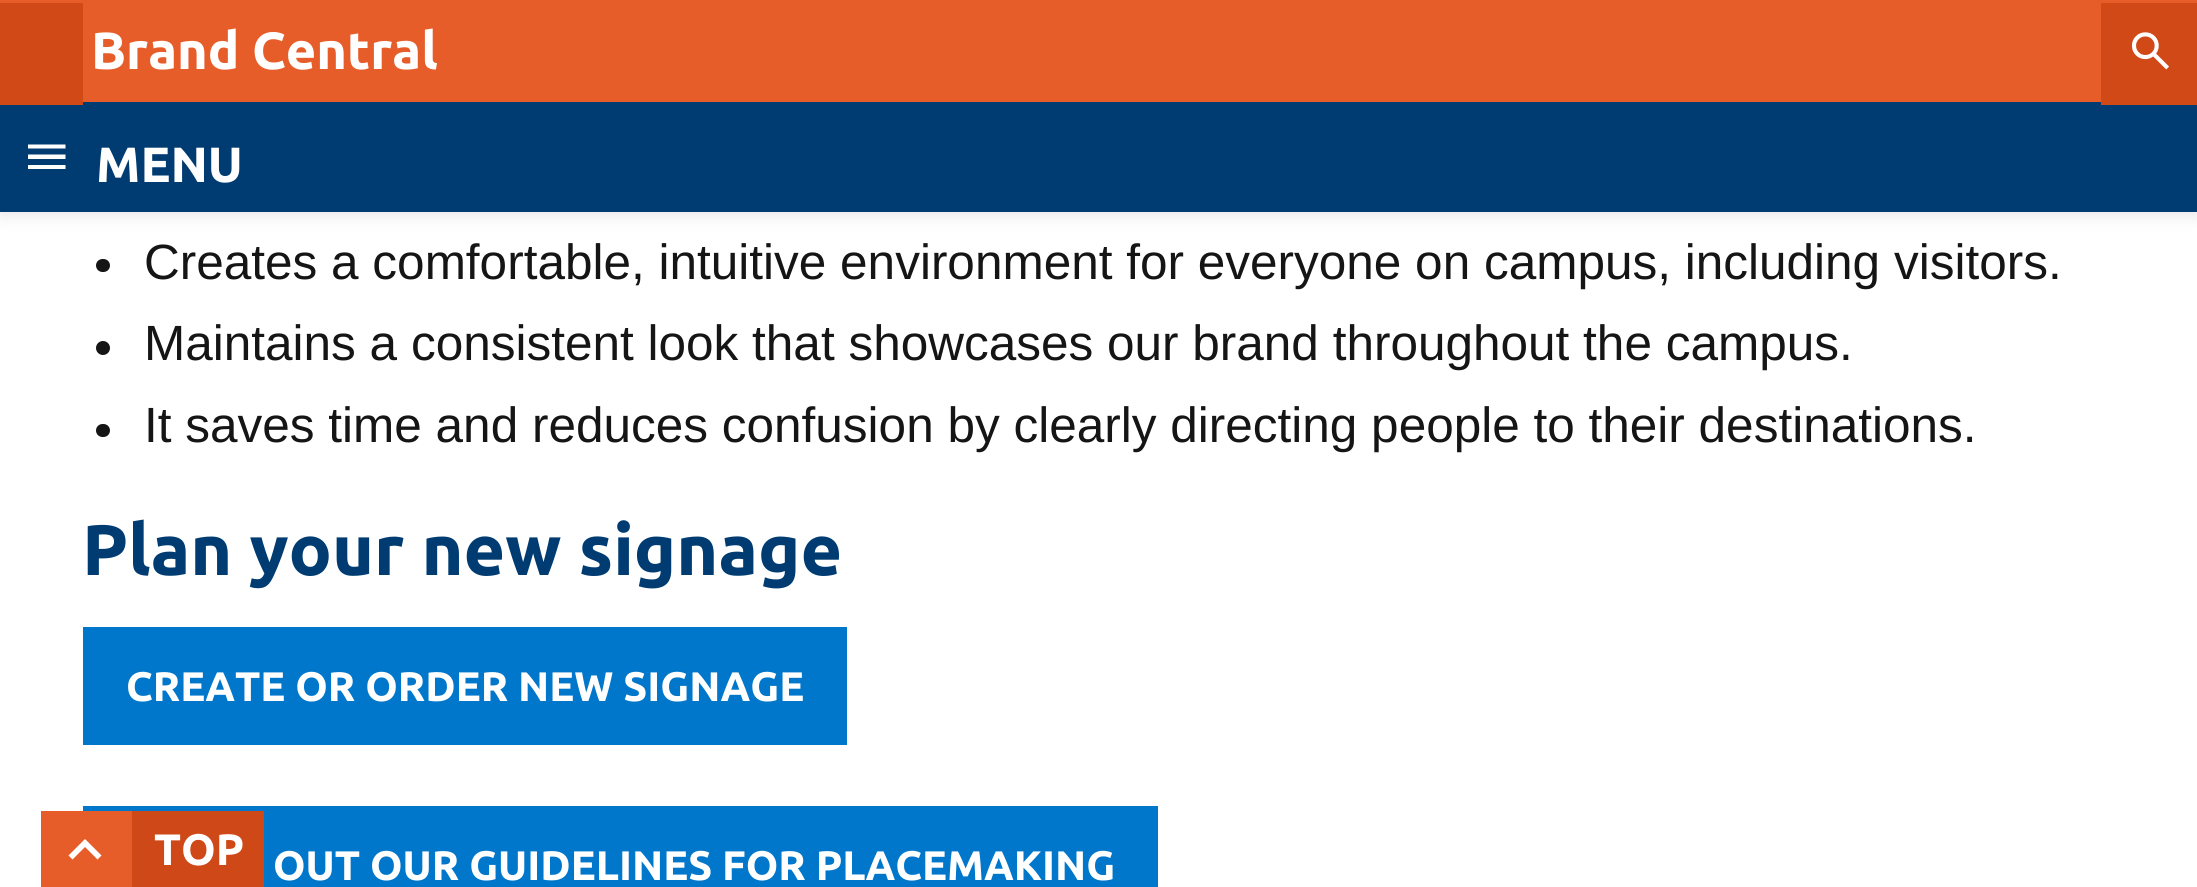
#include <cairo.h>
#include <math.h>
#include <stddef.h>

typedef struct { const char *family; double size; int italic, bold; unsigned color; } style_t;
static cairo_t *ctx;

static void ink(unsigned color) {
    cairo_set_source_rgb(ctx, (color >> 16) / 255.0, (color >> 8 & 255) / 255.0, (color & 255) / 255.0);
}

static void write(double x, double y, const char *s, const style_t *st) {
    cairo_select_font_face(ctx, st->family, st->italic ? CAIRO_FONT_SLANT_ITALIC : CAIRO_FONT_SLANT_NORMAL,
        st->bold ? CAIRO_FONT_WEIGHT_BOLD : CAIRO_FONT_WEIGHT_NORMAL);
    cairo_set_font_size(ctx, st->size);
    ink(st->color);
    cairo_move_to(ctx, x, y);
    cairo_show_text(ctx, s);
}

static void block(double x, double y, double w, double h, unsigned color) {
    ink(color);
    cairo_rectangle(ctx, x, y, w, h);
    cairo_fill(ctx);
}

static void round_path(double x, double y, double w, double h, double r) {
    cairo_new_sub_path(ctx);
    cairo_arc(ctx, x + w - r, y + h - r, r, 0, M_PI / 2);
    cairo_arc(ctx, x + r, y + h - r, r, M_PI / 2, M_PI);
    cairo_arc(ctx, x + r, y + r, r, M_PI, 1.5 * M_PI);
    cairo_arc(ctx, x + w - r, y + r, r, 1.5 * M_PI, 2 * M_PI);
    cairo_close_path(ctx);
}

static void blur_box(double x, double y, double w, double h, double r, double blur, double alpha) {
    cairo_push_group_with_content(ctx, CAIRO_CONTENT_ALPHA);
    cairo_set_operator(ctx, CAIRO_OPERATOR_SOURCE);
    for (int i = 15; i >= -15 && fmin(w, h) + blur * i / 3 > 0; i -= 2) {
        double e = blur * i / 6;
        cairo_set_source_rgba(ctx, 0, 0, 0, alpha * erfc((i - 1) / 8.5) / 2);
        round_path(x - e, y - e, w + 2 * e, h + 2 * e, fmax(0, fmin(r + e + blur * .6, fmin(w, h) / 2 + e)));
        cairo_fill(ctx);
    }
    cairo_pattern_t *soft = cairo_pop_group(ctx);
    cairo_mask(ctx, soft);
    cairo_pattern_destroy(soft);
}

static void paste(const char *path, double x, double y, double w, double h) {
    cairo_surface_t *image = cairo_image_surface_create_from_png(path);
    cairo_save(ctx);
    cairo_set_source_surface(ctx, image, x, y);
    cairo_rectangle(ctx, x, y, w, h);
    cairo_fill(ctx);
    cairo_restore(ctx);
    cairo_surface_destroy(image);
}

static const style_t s1 = {"Ubuntu", 52.25, 0, 1, 0xffffff};
static const style_t s2 = {"Ubuntu", 49.5, 0, 1, 0xffffff};
static const style_t s3 = {"Liberation Sans", 49.5, 0, 0, 0x151515};
static const style_t s4 = {"Ubuntu", 71.5, 0, 1, 0x003c71};
static const style_t s5 = {"Ubuntu", 41.25, 0, 1, 0xffffff};
static const style_t s6 = {"Ubuntu", 44, 0, 1, 0xffffff};

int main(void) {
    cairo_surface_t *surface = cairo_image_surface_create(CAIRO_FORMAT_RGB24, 2197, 887);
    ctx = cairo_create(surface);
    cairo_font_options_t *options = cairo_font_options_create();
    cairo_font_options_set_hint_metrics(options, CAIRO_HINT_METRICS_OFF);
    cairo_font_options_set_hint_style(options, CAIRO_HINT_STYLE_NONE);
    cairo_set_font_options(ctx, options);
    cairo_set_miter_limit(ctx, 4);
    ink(0xffffff);
    cairo_paint(ctx);
    ink(0x000000);
    blur_box(0, 3, 2197, 212, 0, 8, 0.1);
    block(0, 0, 2197, 102, 0xe75d2a);
    block(0, 102, 2197, 110, 0x003c71);
    block(0, 3, 83, 102, 0xd14917);
    write(91, 69, "Brand Central", &s1);
    block(2101, 3, 96, 102, 0xd14917);
    paste("pic1.png", 2131, 32, 38, 38);
    ink(0xffffff);
    cairo_new_path(ctx);
    cairo_move_to(ctx, 28, 169);
    cairo_line_to(ctx, 28, 165);
    cairo_line_to(ctx, 65.5, 165);
    cairo_line_to(ctx, 65.5, 169);
    cairo_close_path(ctx);
    cairo_move_to(ctx, 28, 159);
    cairo_line_to(ctx, 28, 154.5);
    cairo_line_to(ctx, 65.5, 154.5);
    cairo_line_to(ctx, 65.5, 159);
    cairo_close_path(ctx);
    cairo_move_to(ctx, 28, 148.5);
    cairo_line_to(ctx, 28, 144.5);
    cairo_line_to(ctx, 65.5, 144.5);
    cairo_line_to(ctx, 65.5, 148.5);
    cairo_close_path(ctx);
    cairo_fill(ctx);
    write(96, 182, "MENU", &s2);
    ink(0x151515);
    round_path(96, 259, 14, 13, 6.5);
    cairo_fill(ctx);
    write(144, 279, "Creates a comfortable, intuitive environment for everyone on campus, including visitors.", &s3);
    cairo_new_path(ctx);
    cairo_arc(ctx, 103, 348, 7, 0, 2 * M_PI);
    cairo_fill(ctx);
    write(144, 360, "Maintains a consistent look that showcases our brand throughout the campus.", &s3);
    round_path(96, 424, 14, 13, 6.5);
    cairo_fill(ctx);
    write(144, 442, "It saves time and reduces confusion by clearly directing people to their destinations.", &s3);
    write(82, 575, "Plan your new signage", &s4);
    block(83, 627, 764, 118, 0x0077ca);
    write(126, 701, "CREATE OR ORDER NEW SIGNAGE", &s5);
    block(83, 806, 1075, 81, 0x0077ca);
    write(273, 880, "OUT OUR GUIDELINES FOR PLACEMAKING", &s5);
    block(41, 811, 91, 76, 0xe75d2a);
    ink(0xffffff);
    cairo_new_path(ctx);
    cairo_move_to(ctx, 85, 847);
    cairo_line_to(ctx, 72.5, 859.5);
    cairo_line_to(ctx, 68.5, 855.5);
    cairo_line_to(ctx, 85, 839);
    cairo_line_to(ctx, 101.5, 855.5);
    cairo_line_to(ctx, 97.5, 859.5);
    cairo_close_path(ctx);
    cairo_fill(ctx);
    block(132, 811, 132, 76, 0xcf4817);
    write(154, 865, "TOP", &s6);
    cairo_surface_write_to_png(surface, "screenshot.png");
    cairo_font_options_destroy(options);
    cairo_destroy(ctx);
    cairo_surface_destroy(surface);
    return 0;
}
